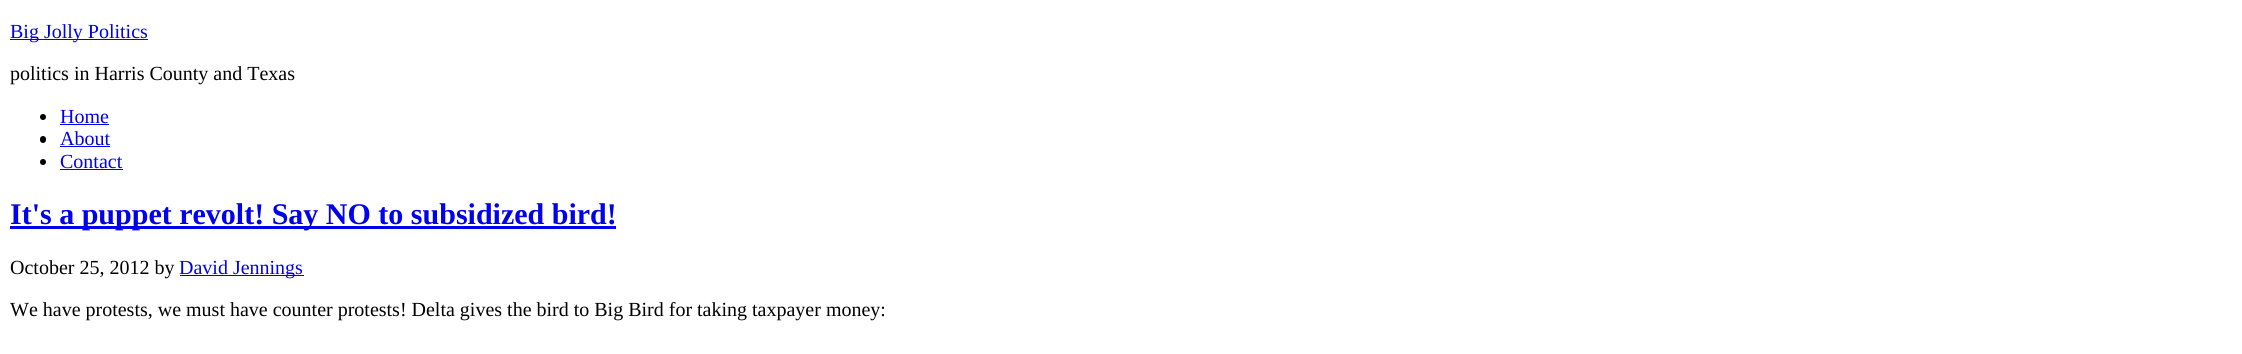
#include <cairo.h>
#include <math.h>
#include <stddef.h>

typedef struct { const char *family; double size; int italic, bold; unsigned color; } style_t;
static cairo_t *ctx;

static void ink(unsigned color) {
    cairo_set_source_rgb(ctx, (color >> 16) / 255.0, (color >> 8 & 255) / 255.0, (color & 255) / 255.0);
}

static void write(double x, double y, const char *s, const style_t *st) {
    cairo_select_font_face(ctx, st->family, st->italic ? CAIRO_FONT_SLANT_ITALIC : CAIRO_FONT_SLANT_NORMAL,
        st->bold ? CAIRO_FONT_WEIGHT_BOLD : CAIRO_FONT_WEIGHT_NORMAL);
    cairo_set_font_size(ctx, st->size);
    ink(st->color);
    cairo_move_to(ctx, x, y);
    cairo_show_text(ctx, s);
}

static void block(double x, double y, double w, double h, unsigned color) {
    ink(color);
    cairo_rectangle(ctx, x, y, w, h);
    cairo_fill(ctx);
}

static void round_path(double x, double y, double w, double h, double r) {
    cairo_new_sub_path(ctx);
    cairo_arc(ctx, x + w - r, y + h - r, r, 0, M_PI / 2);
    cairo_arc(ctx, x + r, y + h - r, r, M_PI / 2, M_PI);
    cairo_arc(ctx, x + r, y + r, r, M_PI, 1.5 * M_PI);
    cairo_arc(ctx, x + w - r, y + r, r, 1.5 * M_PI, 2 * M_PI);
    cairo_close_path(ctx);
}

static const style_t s1 = {"Liberation Serif", 20, 0, 0, 0x0000ee};
static const style_t s2 = {"Liberation Serif", 20, 0, 0, 0x000000};
static const style_t s3 = {"Liberation Serif", 30, 0, 1, 0x0000ee};

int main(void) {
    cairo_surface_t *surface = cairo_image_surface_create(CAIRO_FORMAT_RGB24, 2242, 354);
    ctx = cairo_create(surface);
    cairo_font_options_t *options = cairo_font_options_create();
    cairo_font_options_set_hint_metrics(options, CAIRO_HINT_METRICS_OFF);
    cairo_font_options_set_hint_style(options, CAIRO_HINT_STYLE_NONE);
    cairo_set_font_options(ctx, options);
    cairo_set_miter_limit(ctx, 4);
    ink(0xffffff);
    cairo_paint(ctx);
    block(10, 39, 138, 1, 0x0000ee);
    write(10, 38, "Big Jolly Politics", &s1);
    write(10, 80, "politics in Harris County and Texas", &s2);
    cairo_new_path(ctx);
    cairo_arc(ctx, 43, 117, 3, 0, 2 * M_PI);
    cairo_fill(ctx);
    write(60, 123, "Home", &s1);
    block(60, 124, 49, 1, 0x0000ee);
    ink(0x000000);
    round_path(40, 136, 6, 7, 3);
    cairo_fill(ctx);
    write(60, 145, "About", &s1);
    block(60, 146, 50, 1, 0x0000ee);
    ink(0x000000);
    cairo_new_path(ctx);
    cairo_arc(ctx, 43, 162, 3, 0, 2 * M_PI);
    cairo_fill(ctx);
    write(60, 168, "Contact", &s1);
    block(60, 169, 63, 1, 0x0000ee);
    block(10, 226, 606, 3, 0x0000ee);
    write(10, 224, "It's a puppet revolt! Say NO to subsidized bird!", &s3);
    write(10, 274, "October 25, 2012 by", &s2);
    block(180, 275, 124, 1, 0x0000ee);
    write(179, 274, "David Jennings", &s1);
    write(10, 316, "We have protests, we must have counter protests! Delta gives the bird to Big Bird for taking taxpayer money:", &s2);
    cairo_surface_write_to_png(surface, "screenshot.png");
    cairo_font_options_destroy(options);
    cairo_destroy(ctx);
    cairo_surface_destroy(surface);
    return 0;
}
